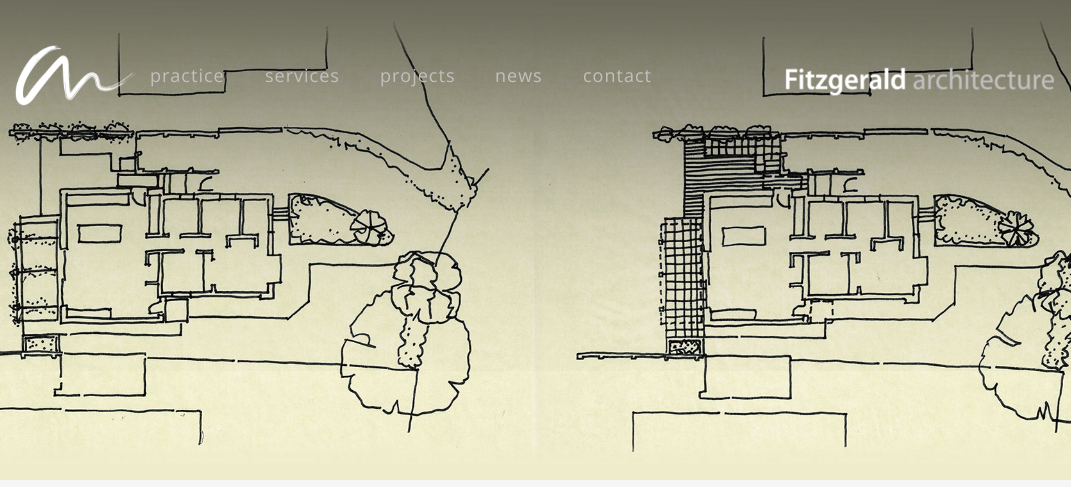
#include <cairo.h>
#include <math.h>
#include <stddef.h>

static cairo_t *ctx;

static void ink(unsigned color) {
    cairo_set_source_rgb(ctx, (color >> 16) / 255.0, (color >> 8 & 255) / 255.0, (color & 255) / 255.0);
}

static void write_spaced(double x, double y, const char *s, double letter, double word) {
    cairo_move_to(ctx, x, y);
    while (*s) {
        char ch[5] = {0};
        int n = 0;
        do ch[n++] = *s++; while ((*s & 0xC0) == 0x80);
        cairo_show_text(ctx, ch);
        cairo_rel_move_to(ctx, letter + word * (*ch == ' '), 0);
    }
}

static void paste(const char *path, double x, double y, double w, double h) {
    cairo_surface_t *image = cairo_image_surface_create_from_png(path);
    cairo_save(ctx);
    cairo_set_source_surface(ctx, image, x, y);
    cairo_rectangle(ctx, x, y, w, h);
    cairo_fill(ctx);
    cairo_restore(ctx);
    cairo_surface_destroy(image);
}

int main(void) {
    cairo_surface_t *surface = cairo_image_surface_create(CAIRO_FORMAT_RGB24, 1071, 487);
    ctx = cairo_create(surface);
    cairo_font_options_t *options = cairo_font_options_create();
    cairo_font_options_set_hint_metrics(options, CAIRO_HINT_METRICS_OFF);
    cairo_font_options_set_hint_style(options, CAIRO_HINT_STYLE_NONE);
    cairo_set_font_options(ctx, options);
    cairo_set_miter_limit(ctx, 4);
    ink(0xf6f6f6);
    cairo_paint(ctx);
    paste("pic1.png", 0, 0, 1071, 480);
    paste("pic2.png", 0, 0, 1071, 371);
    paste("pic3.png", 15, 45, 121, 61);
    cairo_select_font_face(ctx, "Open Sans", CAIRO_FONT_SLANT_NORMAL, CAIRO_FONT_WEIGHT_NORMAL);
    cairo_set_font_size(ctx, 18);
    ink(0xc1c0bf);
    write_spaced(150, 82, "practice", 1, 0);
    write_spaced(265, 82, "services", 1, 0);
    write_spaced(380, 82, "projects", 1, 0);
    write_spaced(495, 82, "news", 1, 0);
    write_spaced(583, 82, "contact", 1, 0);
    paste("pic4.png", 785, 67, 269, 29);
    cairo_surface_write_to_png(surface, "screenshot.png");
    cairo_font_options_destroy(options);
    cairo_destroy(ctx);
    cairo_surface_destroy(surface);
    return 0;
}
